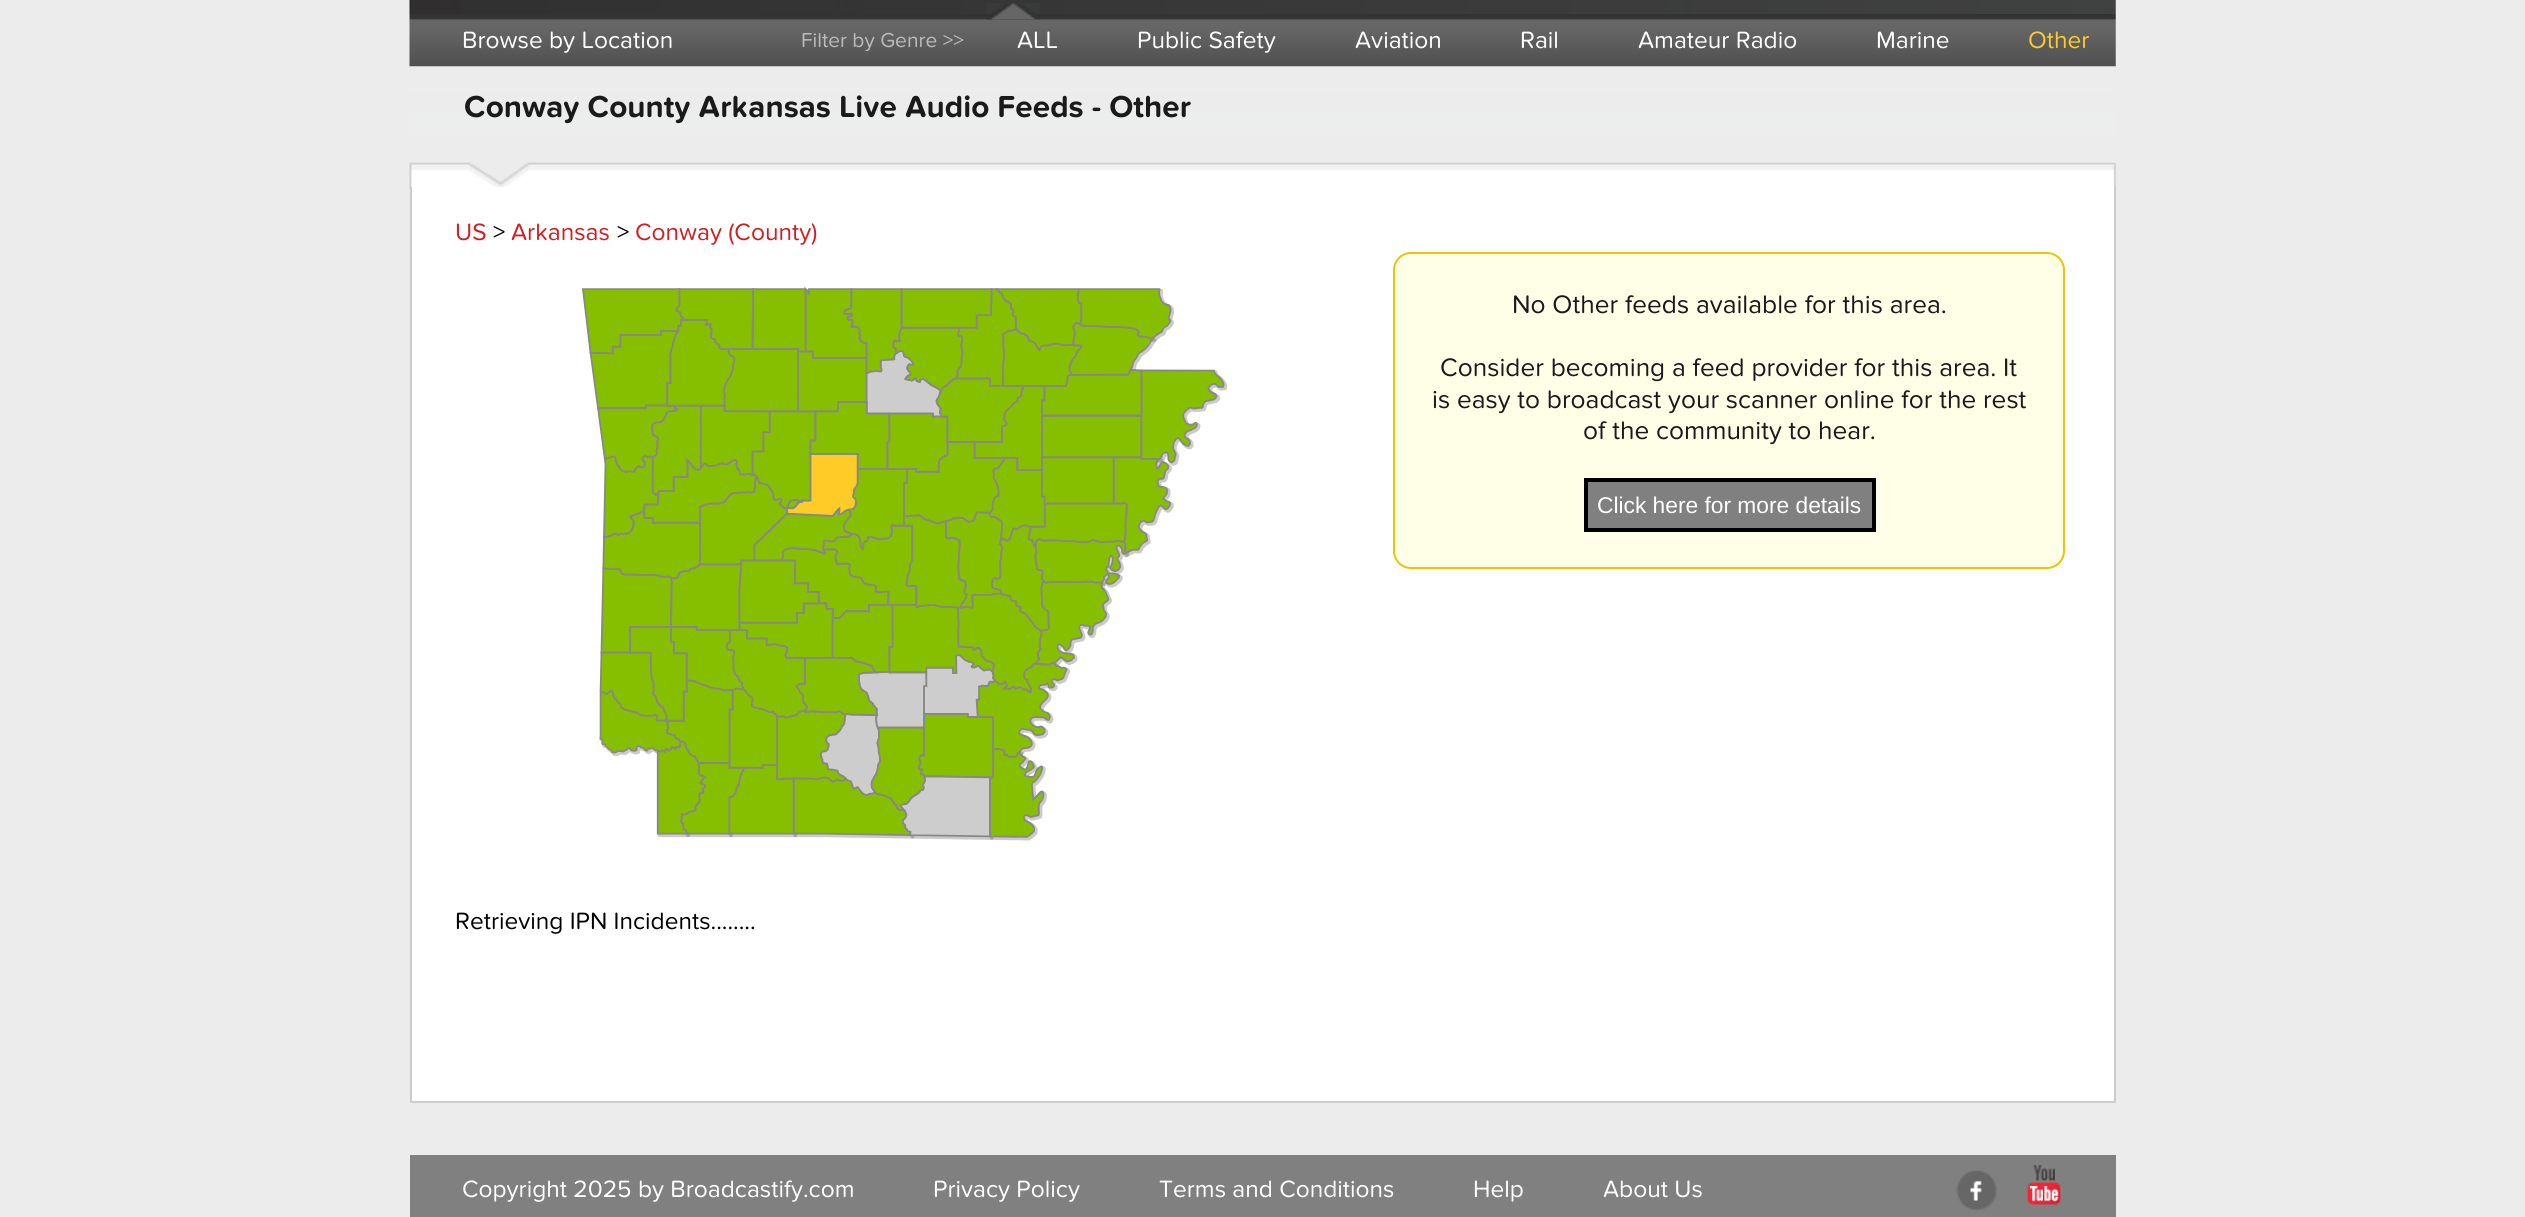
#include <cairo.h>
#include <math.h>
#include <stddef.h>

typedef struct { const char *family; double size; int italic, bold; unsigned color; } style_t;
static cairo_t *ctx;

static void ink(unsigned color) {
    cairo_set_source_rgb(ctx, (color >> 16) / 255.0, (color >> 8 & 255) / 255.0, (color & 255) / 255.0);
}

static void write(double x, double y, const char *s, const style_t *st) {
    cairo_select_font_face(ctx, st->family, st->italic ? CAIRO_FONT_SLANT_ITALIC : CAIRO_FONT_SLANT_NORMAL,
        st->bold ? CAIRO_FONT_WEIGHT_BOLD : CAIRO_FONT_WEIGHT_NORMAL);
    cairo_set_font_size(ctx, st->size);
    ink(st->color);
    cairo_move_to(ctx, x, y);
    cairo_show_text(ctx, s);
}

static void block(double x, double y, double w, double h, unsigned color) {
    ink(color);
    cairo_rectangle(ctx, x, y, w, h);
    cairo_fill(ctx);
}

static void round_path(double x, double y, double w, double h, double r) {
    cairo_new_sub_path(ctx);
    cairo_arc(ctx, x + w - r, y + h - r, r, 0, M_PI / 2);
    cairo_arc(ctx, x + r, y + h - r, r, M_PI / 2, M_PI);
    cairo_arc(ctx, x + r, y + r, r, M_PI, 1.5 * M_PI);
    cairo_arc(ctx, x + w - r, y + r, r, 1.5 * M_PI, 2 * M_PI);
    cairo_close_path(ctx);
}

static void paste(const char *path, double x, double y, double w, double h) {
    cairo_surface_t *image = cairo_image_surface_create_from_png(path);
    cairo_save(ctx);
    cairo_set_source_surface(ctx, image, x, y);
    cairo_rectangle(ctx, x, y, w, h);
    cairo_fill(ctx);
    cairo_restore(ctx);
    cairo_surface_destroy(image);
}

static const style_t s1 = {"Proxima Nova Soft", 24.5, 0, 0, 0xffffff};
static const style_t s2 = {"Proxima Nova Soft", 21, 0, 0, 0xbbbbbb};
static const style_t s3 = {"Proxima Nova Soft", 24.5, 0, 0, 0xffcb27};
static const style_t s4 = {"Proxima Nova Soft", 31.5, 0, 1, 0x1a1a1a};
static const style_t s5 = {"Proxima Nova Soft", 24.5, 0, 0, 0xcf1e23};
static const style_t s6 = {"Proxima Nova Soft", 24.5, 0, 0, 0x000000};
static const style_t s7 = {"Proxima Nova Soft", 26.25, 0, 0, 0x1a1a1a};
static const style_t s8 = {"Liberation Sans", 22.75, 0, 0, 0xffffff};

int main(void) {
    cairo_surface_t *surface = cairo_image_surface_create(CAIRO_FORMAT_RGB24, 2525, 1217);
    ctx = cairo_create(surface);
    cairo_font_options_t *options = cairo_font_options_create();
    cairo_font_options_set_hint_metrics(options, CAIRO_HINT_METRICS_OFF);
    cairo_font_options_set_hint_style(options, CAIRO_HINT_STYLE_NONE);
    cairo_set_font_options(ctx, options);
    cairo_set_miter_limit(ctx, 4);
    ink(0xececec);
    cairo_paint(ctx);
    paste("pic1.png", 409, 0, 1707, 14);
    paste("pic2.png", 409, 14, 1707, 53);
    paste("pic3.png", 987, 3, 53, 17);
    write(462, 48, "Browse by Location", &s1);
    write(801, 47, "Filter by Genre >>", &s2);
    write(1017, 48, "ALL", &s1);
    write(1137, 48, "Public Safety", &s1);
    write(1355, 48, "Aviation", &s1);
    write(1520, 48, "Rail", &s1);
    write(1638, 48, "Amateur Radio", &s1);
    write(1876, 48, "Marine", &s1);
    write(2028, 48, "Other", &s3);
    paste("pic4.png", 409, 66, 1707, 123);
    write(464, 117, "Conway County Arkansas Live Audio Feeds - Other", &s4);
    block(412, 187, 1702, 914, 0xffffff);
    block(2114, 187, 2, 916, 0xcccccc);
    block(410, 1101, 1706, 2, 0xcccccc);
    block(410, 187, 2, 916, 0xcccccc);
    write(455, 240, "US", &s5);
    write(493, 240, ">", &s6);
    write(511, 240, "Arkansas", &s5);
    write(617, 240, ">", &s6);
    write(635, 240, "Conway (County)", &s5);
    paste("pic5.png", 582, 286, 646, 555);
    ink(0xfffee7);
    round_path(1394, 253, 670, 315, 17);
    cairo_fill_preserve(ctx);
    ink(0xe7c60d);
    cairo_stroke(ctx);
    write(1512, 313, "No Other feeds available for this area.", &s7);
    write(1440, 376, "Consider becoming a feed provider for this area. It", &s7);
    write(1432, 408, "is easy to broadcast your scanner online for the rest", &s7);
    write(1583, 439, "of the community to hear.", &s7);
    ink(0x808080);
    cairo_rectangle(ctx, 1586, 480, 288, 50);
    cairo_fill_preserve(ctx);
    ink(0x000000);
    cairo_set_line_width(ctx, 4);
    cairo_stroke(ctx);
    write(1597, 513, "Click here for more details", &s8);
    write(455, 929, "Retrieving IPN Incidents........", &s6);
    block(410, 1155, 1706, 62, 0x808080);
    write(462, 1197, "Copyright 2025 by Broadcastify.com", &s1);
    write(933, 1197, "Privacy Policy", &s1);
    write(1159, 1197, "Terms and Conditions", &s1);
    write(1473, 1197, "Help", &s1);
    write(1603, 1197, "About Us", &s1);
    paste("pic6.png", 1956, 1170, 41, 41);
    paste("pic7.png", 2027, 1165, 34, 40);
    cairo_surface_write_to_png(surface, "screenshot.png");
    cairo_font_options_destroy(options);
    cairo_destroy(ctx);
    cairo_surface_destroy(surface);
    return 0;
}
